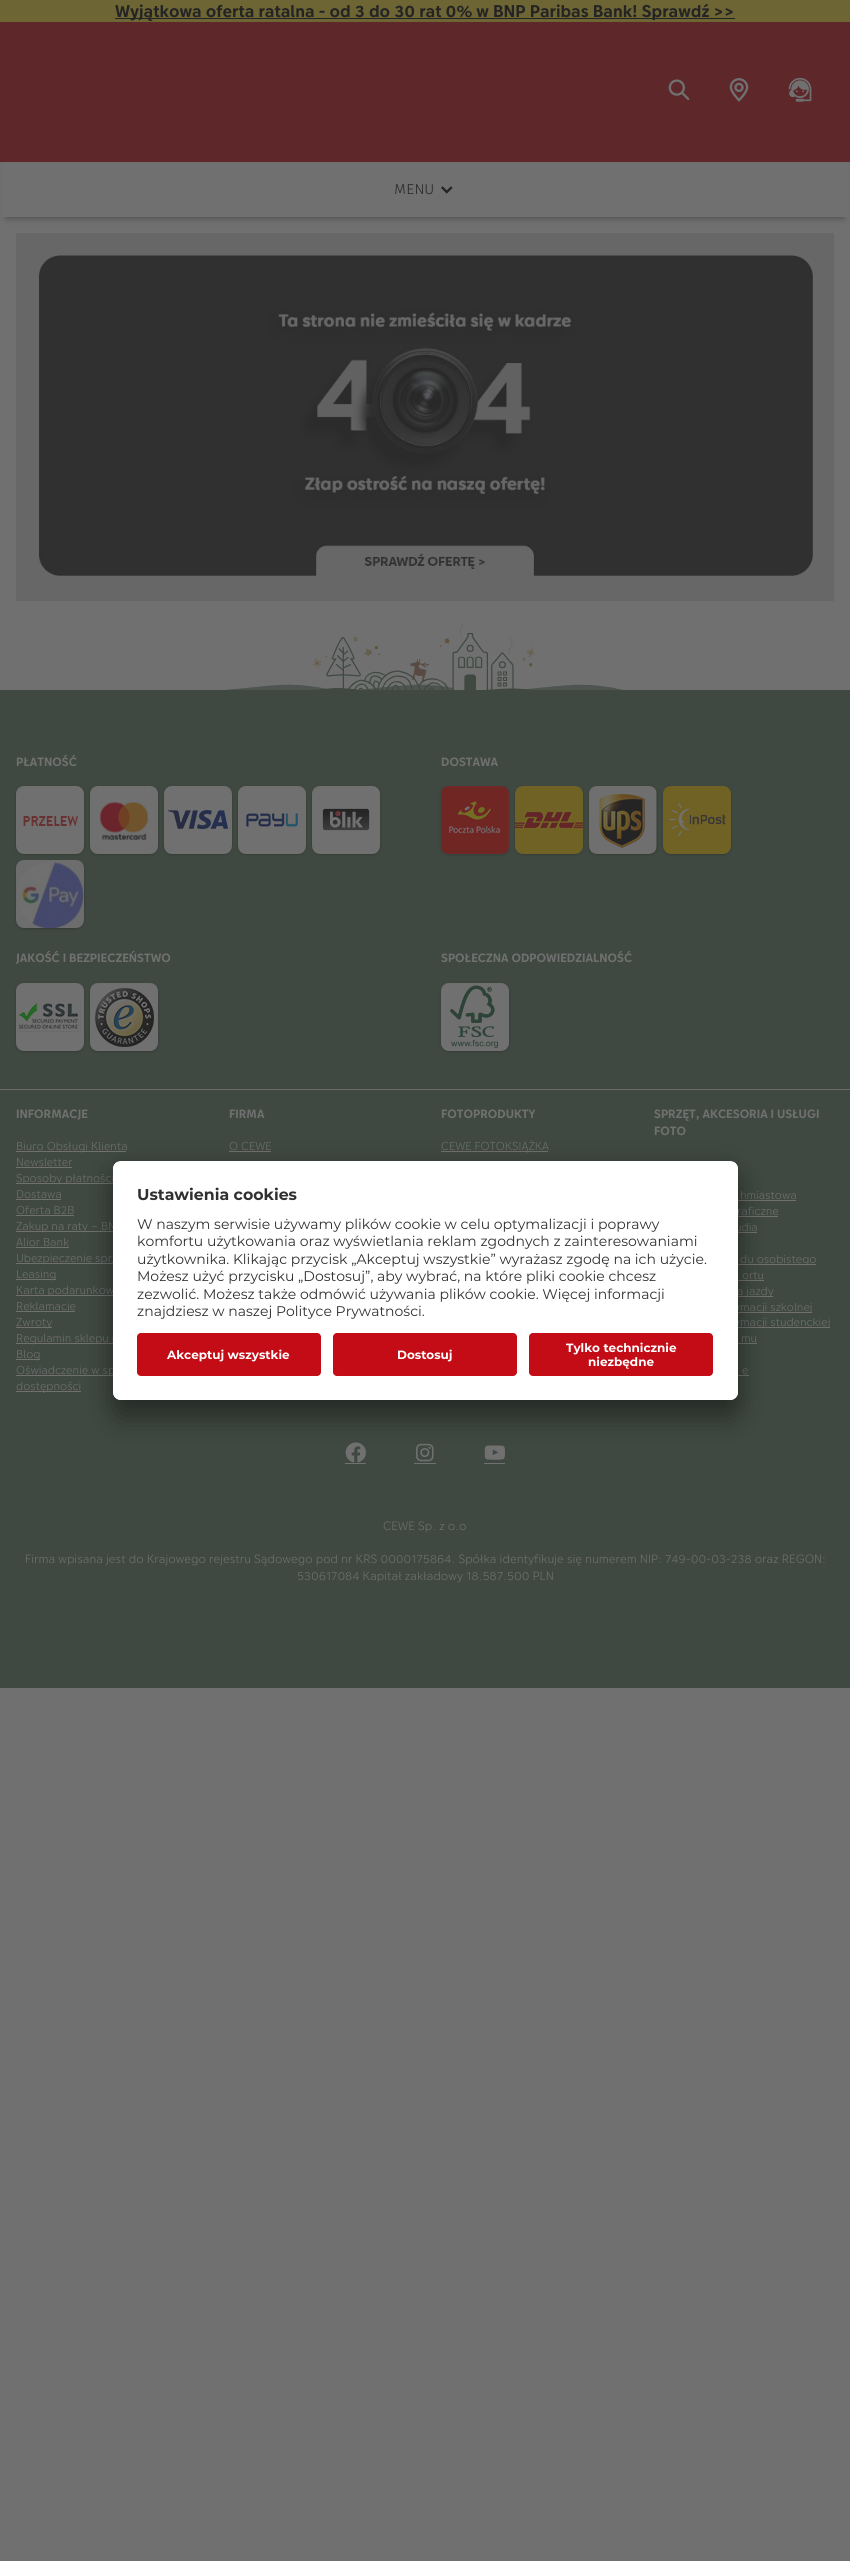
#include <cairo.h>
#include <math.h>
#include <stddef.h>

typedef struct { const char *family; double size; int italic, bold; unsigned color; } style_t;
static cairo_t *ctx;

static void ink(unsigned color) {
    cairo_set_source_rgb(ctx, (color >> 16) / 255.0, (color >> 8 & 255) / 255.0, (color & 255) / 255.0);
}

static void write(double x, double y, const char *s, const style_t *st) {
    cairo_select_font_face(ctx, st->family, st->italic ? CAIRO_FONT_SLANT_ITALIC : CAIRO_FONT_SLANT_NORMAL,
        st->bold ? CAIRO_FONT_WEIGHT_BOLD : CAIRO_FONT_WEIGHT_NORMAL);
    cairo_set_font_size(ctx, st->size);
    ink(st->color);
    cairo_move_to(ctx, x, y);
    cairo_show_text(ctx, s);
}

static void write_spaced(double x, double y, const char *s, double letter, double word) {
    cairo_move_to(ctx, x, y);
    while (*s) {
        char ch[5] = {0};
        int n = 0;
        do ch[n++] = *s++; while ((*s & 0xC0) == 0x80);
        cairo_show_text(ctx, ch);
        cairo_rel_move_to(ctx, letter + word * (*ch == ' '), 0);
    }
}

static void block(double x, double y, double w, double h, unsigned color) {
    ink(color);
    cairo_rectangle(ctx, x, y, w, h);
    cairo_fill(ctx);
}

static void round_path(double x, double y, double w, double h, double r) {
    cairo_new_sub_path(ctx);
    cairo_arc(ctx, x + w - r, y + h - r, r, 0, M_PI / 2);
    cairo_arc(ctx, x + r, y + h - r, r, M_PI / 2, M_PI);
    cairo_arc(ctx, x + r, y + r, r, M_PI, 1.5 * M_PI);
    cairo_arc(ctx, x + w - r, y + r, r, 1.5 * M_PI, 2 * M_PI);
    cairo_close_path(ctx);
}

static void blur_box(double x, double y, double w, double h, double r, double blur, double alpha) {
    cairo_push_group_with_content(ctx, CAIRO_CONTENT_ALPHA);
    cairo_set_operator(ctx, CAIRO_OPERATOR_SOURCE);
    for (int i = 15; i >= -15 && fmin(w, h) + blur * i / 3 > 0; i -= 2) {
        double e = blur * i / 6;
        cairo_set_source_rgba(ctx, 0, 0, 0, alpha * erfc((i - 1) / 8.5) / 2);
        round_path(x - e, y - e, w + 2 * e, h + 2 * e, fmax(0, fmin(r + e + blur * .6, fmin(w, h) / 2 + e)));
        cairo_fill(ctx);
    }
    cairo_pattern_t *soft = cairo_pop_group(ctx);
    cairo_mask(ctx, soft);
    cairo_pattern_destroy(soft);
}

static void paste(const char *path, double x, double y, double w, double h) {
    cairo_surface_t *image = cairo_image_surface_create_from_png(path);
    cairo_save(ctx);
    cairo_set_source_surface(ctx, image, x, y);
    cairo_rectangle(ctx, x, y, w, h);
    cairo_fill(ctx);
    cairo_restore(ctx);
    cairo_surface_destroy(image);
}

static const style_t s1 = {"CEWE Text", 17, 0, 1, 0x242424};
static const style_t s2 = {"CEWE Text", 12, 0, 1, 0x707070};
static const style_t s3 = {"CEWE Text Light", 11.5, 0, 0, 0x707070};
static const style_t s4 = {"CEWE Text Light", 12, 0, 0, 0x707070};
static const style_t s5 = {"Montserrat", 15.75, 0, 1, 0x303030};
static const style_t s6 = {"Montserrat", 14, 0, 0, 0x303030};
static const style_t s7 = {"Montserrat", 12, 0, 1, 0xffffff};

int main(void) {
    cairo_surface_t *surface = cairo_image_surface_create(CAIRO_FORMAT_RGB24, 850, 2561);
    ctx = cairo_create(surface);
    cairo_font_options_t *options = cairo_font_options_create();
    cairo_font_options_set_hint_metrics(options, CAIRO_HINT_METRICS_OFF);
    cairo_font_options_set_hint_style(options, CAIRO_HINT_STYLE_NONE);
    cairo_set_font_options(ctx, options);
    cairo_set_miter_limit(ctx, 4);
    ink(0x707070);
    cairo_paint(ctx);
    block(0, 0, 850, 22, 0x6d6533);
    block(115, 18, 620, 1, 0x242424);
    write(115, 17, "Wyjątkowa oferta ratalna - od 3 do 30 rat 0% w BNP Paribas Bank! Sprawdź >>", &s1);
    ink(0x545454);
    blur_box(6, 36, 838, 183, 0, 3, 1);
    block(0, 22, 850, 140, 0x5e272a);
    paste("pic1.png", 668, 79, 22, 22);
    paste("pic2.png", 729, 78, 20, 24);
    paste("pic3.png", 788, 77, 24, 25);
    block(2, 162, 846, 55, 0x707070);
    cairo_select_font_face(ctx, "CEWE Text Light", CAIRO_FONT_SLANT_NORMAL, CAIRO_FONT_WEIGHT_NORMAL);
    cairo_set_font_size(ctx, 14);
    ink(0x242424);
    write_spaced(394, 194, "MENU", 0.5, 0);
    paste("pic4.png", 441, 186, 12, 8);
    paste("pic5.png", 16, 233, 818, 368);
    block(0, 690, 850, 998, 0x3f4941);
    paste("pic6.png", 225, 623, 399, 67);
    write(16, 766, "PŁATNOŚĆ", &s2);
    ink(0x242424);
    blur_box(16, 787, 68, 68, 8, 1.5, 0.4);
    paste("pic7.png", 16, 786, 68, 68);
    blur_box(90, 787, 68, 68, 8, 1.5, 0.4);
    paste("pic8.png", 90, 786, 68, 68);
    blur_box(164, 787, 68, 68, 8, 1.5, 0.4);
    paste("pic9.png", 164, 786, 68, 68);
    blur_box(238, 787, 68, 68, 8, 1.5, 0.4);
    paste("pic10.png", 238, 786, 68, 68);
    blur_box(312, 787, 68, 68, 8, 1.5, 0.4);
    paste("pic11.png", 312, 786, 68, 68);
    blur_box(16, 861, 68, 68, 8, 1.5, 0.4);
    paste("pic12.png", 16, 860, 68, 68);
    write(441, 766, "DOSTAWA", &s2);
    ink(0x242424);
    blur_box(441, 787, 68, 68, 8, 1.5, 0.4);
    paste("pic13.png", 441, 786, 68, 68);
    blur_box(515, 787, 68, 68, 8, 1.5, 0.4);
    paste("pic14.png", 515, 786, 68, 68);
    blur_box(589, 787, 68, 68, 8, 1.5, 0.4);
    paste("pic15.png", 589, 786, 68, 68);
    blur_box(663, 787, 68, 68, 8, 1.5, 0.4);
    paste("pic16.png", 663, 786, 68, 68);
    write(16, 962, "JAKOŚĆ I BEZPIECZEŃSTWO", &s2);
    ink(0x242424);
    blur_box(16, 984, 68, 68, 8, 1.5, 0.4);
    paste("pic17.png", 16, 983, 68, 68);
    blur_box(90, 984, 68, 68, 8, 1.5, 0.4);
    paste("pic18.png", 90, 983, 68, 68);
    write(441, 962, "SPOŁECZNA ODPOWIEDZIALNOŚĆ", &s2);
    ink(0x242424);
    blur_box(441, 984, 68, 68, 8, 1.5, 0.4);
    paste("pic19.png", 441, 983, 68, 68);
    block(0, 1089, 850, 1, 0x6b6b6b);
    write(16, 1118, "INFORMACJE", &s2);
    block(16, 1151, 110, 1, 0x707070);
    write(16, 1150, "Biuro Obsługi Klienta", &s3);
    write(16, 1166, "Newsletter", &s3);
    block(16, 1167, 56, 1, 0x707070);
    block(16, 1183, 97, 1, 0x707070);
    write(16, 1182, "Sposoby płatności", &s3);
    write(16, 1198, "Dostawa", &s3);
    block(16, 1199, 45, 1, 0x707070);
    write(16, 1214, "Oferta B2B", &s3);
    block(16, 1215, 58, 1, 0x707070);
    block(16, 1231, 97, 1, 0x707070);
    write(16, 1230, "Zakup na raty – BN", &s3);
    write(16, 1246, "Alior Bank", &s3);
    block(16, 1247, 53, 1, 0x707070);
    block(16, 1263, 97, 1, 0x707070);
    write(16, 1262, "Ubezpieczenie sprz", &s3);
    block(16, 1279, 40, 1, 0x707070);
    write(16, 1278, "Leasing", &s3);
    block(16, 1295, 103, 1, 0x707070);
    write(16, 1294, "Karta podarunkow", &s3);
    block(16, 1311, 59, 1, 0x707070);
    write(16, 1310, "Reklamacje", &s3);
    block(16, 1327, 36, 1, 0x707070);
    write(16, 1326, "Zwroty", &s3);
    block(16, 1343, 97, 1, 0x707070);
    write(16, 1342, "Regulamin sklepu i", &s3);
    block(16, 1359, 24, 1, 0x707070);
    write(16, 1358, "Blog", &s3);
    block(16, 1375, 97, 1, 0x707070);
    write(16, 1374, "Oświadczenie w sp", &s3);
    block(16, 1391, 65, 1, 0x707070);
    write(16, 1390, "dostępności", &s3);
    write(229, 1118, "FIRMA", &s2);
    write(229, 1150, "O CEWE", &s3);
    block(229, 1151, 42, 1, 0x707070);
    write(441, 1118, "FOTOPRODUKTY", &s2);
    block(441, 1151, 107, 1, 0x707070);
    write(441, 1150, "CEWE FOTOKSIĄŻKA", &s3);
    write(654, 1118, "SPRZĘT, AKCESORIA I USŁUGI", &s2);
    write(654, 1135, "FOTO", &s2);
    write(740, 1199, "hmiastowa", &s3);
    block(738, 1200, 58, 1, 0x707070);
    write(737, 1215, "raficzne", &s3);
    block(738, 1216, 40, 1, 0x707070);
    write(735, 1231, "udia", &s3);
    block(738, 1232, 19, 1, 0x707070);
    block(738, 1264, 78, 1, 0x707070);
    write(740, 1263, "du osobistego", &s3);
    write(742, 1279, "ortu", &s3);
    block(738, 1280, 26, 1, 0x707070);
    block(738, 1296, 35, 1, 0x707070);
    write(737, 1295, "a jazdy", &s3);
    block(738, 1312, 74, 1, 0x707070);
    write(734, 1311, "ymacji szkolnej", &s3);
    block(738, 1327, 92, 1, 0x707070);
    write(734, 1326, "ymacji studenckiej", &s3);
    write(741, 1342, "mu", &s3);
    block(738, 1343, 19, 1, 0x707070);
    write(742, 1374, "e", &s3);
    block(738, 1375, 11, 1, 0x707070);
    paste("pic20.png", 345, 1442, 21, 21);
    block(345, 1463, 21, 1, 0x707070);
    paste("pic21.png", 416, 1443, 18, 19);
    block(414, 1463, 22, 1, 0x707070);
    paste("pic22.png", 484, 1445, 21, 15);
    block(484, 1463, 21, 1, 0x707070);
    write(383, 1530, "CEWE Sp. z o.o", &s4);
    write(25, 1563, "Firma wpisana jest do Krajowego rejestru Sądowego pod nr KRS 0000175864. Spółka identyfikuje się numerem NIP: 749-00-03-238 oraz REGON:", &s4);
    write(297, 1580, "530617084 Kapitał zakładowy 18.587.500 PLN", &s4);
    ink(0x000000);
    blur_box(113, 1181, 625, 239, 8, 14, 0.3);
    blur_box(113, 1166, 625, 239, 8, 13, 0.22);
    ink(0xffffff);
    round_path(113, 1161, 625, 239, 8);
    cairo_fill(ctx);
    cairo_save(ctx);
    round_path(113, 1161, 625, 239, 8);
    cairo_clip(ctx);
    cairo_new_path(ctx);
    cairo_move_to(ctx, 121, 1161);
    cairo_line_to(ctx, 730, 1161);
    cairo_curve_to(ctx, 734.5, 1161, 738, 1164.5, 738, 1169);
    cairo_line_to(ctx, 738, 1325);
    cairo_line_to(ctx, 113, 1325);
    cairo_line_to(ctx, 113, 1169);
    cairo_curve_to(ctx, 113, 1164.5, 116.5, 1161, 121, 1161);
    cairo_close_path(ctx);
    cairo_clip(ctx);
    block(113, 1162, 625, 163, 0xffffff);
    cairo_restore(ctx);
    write(137, 1200, "Ustawienia cookies", &s5);
    write(137, 1229, "W naszym serwisie używamy plików cookie w celu optymalizacji i poprawy", &s6);
    write(137, 1246, "komfortu użytkowania oraz wyświetlania reklam zgodnych z zainteresowaniami", &s6);
    write(137, 1264, "użytkownika. Klikając przycisk „Akceptuj wszystkie” wyrażasz zgodę na ich użycie.", &s6);
    write(137, 1281, "Możesz użyć przycisku „Dostosuj”, aby wybrać, na które pliki cookie chcesz", &s6);
    write(137, 1299, "zezwolić. Możesz także odmówić używania plików cookie. Więcej informacji", &s6);
    write(137, 1316, "znajdziesz w naszej Polityce Prywatności.", &s6);
    ink(0xffffff);
    cairo_new_path(ctx);
    cairo_move_to(ctx, 113, 1325);
    cairo_line_to(ctx, 738, 1325);
    cairo_line_to(ctx, 738, 1392);
    cairo_curve_to(ctx, 738, 1396.5, 734.5, 1400, 730, 1400);
    cairo_line_to(ctx, 121, 1400);
    cairo_curve_to(ctx, 116.5, 1400, 113, 1396.5, 113, 1392);
    cairo_close_path(ctx);
    cairo_fill(ctx);
    ink(0xc30c15);
    round_path(137, 1333, 184, 43, 4);
    cairo_fill(ctx);
    write(167, 1359, "Akceptuj wszystkie", &s7);
    ink(0xc30c15);
    round_path(333, 1333, 184, 43, 4);
    cairo_fill(ctx);
    write(397, 1359, "Dostosuj", &s7);
    ink(0xc30c15);
    round_path(529, 1333, 184, 43, 4);
    cairo_fill(ctx);
    write(566, 1352, "Tylko technicznie", &s7);
    write(588, 1366, "niezbędne", &s7);
    cairo_surface_write_to_png(surface, "screenshot.png");
    cairo_font_options_destroy(options);
    cairo_destroy(ctx);
    cairo_surface_destroy(surface);
    return 0;
}
